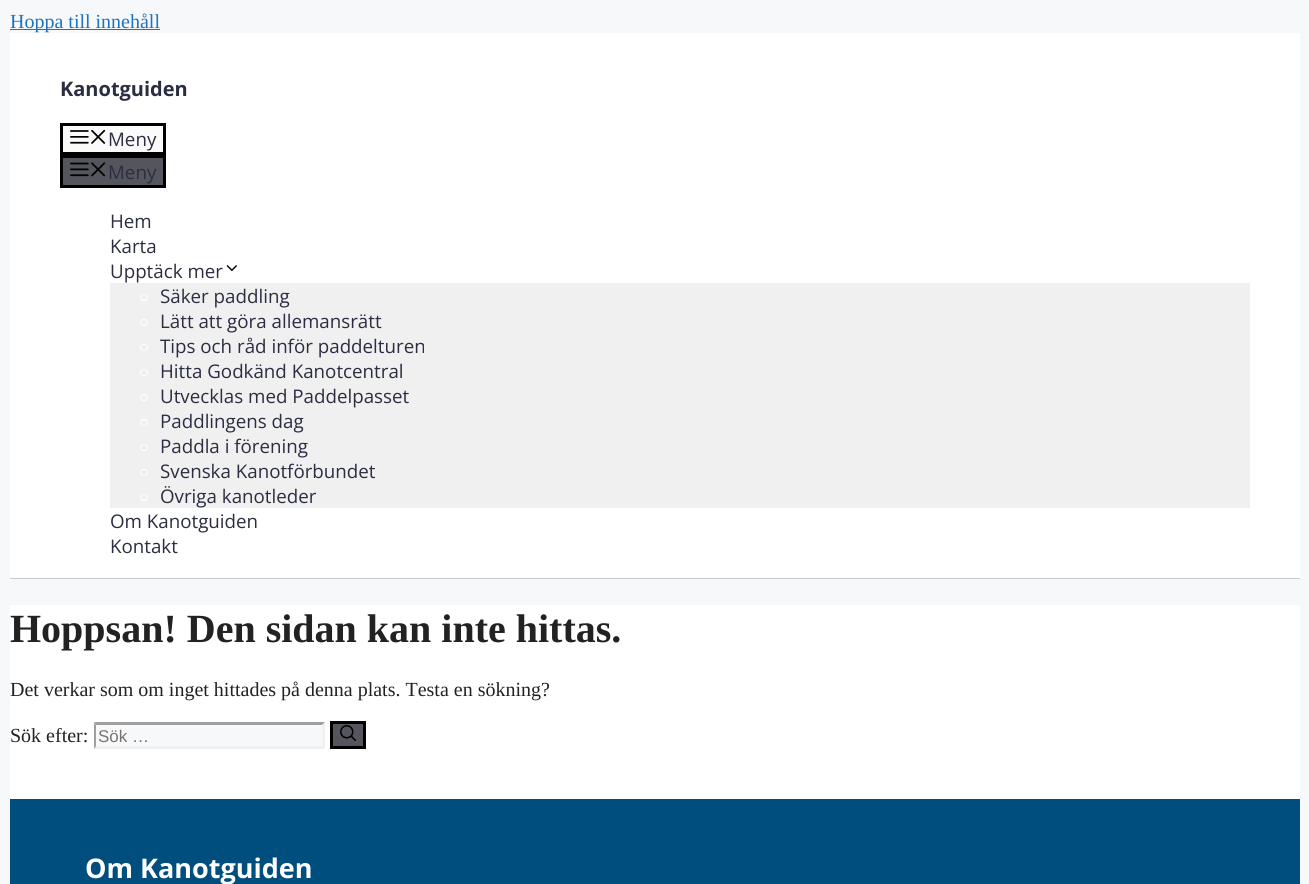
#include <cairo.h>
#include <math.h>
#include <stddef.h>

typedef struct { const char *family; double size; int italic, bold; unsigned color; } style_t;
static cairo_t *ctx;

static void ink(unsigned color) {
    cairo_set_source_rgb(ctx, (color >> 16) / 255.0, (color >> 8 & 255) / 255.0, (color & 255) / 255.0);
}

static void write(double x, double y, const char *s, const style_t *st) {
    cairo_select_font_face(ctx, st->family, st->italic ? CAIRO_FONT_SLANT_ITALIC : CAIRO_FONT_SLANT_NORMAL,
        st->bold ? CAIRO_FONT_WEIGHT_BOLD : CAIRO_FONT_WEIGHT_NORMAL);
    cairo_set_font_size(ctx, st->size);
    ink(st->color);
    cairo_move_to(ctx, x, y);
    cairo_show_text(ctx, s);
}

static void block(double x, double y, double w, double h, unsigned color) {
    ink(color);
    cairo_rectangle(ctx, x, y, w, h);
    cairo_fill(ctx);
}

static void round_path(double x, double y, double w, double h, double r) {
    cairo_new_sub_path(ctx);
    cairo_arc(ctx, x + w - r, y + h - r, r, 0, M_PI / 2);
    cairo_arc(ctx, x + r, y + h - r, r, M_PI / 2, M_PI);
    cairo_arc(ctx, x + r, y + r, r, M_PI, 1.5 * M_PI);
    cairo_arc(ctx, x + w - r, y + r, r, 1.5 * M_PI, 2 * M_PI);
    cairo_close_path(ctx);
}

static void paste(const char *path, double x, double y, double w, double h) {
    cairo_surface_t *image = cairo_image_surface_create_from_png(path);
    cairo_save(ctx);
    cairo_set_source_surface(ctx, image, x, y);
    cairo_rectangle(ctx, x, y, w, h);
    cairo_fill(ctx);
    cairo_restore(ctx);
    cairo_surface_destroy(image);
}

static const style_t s1 = {"Liberation Serif", 20, 0, 0, 0x1e73be};
static const style_t s2 = {"Open Sans", 20, 0, 1, 0x2b2d42};
static const style_t s3 = {"Open Sans", 18.75, 0, 0, 0x2b2d42};
static const style_t s4 = {"Liberation Serif", 40, 0, 1, 0x222222};
static const style_t s5 = {"Liberation Serif", 20, 0, 0, 0x222222};
static const style_t s6 = {"Liberation Sans", 17, 0, 0, 0x757575};
static const style_t s7 = {"Open Sans", 27, 0, 1, 0xffffff};

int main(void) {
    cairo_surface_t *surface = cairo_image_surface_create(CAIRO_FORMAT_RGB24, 1309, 884);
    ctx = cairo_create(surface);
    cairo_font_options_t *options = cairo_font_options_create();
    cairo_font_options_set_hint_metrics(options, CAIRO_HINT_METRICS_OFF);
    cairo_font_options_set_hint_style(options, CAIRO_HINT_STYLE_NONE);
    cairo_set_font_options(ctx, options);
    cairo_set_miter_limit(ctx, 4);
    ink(0xf7f8f9);
    cairo_paint(ctx);
    block(10, 29, 150, 1, 0x1e73be);
    write(10, 28, "Hoppa till innehåll", &s1);
    block(10, 33, 1290, 545, 0xffffff);
    block(10, 578, 1290, 1, 0xcccccc);
    write(60, 96, "Kanotguiden", &s2);
    ink(0xfafafa);
    cairo_rectangle(ctx, 61.5, 124.5, 103, 29);
    cairo_fill_preserve(ctx);
    ink(0x000000);
    cairo_set_line_width(ctx, 3);
    cairo_stroke(ctx);
    paste("pic1.png", 70, 130, 19, 14);
    paste("pic2.png", 91, 129, 15, 15);
    write(108, 146, "Meny", &s3);
    ink(0x55555e);
    cairo_rectangle(ctx, 61.5, 156.5, 103, 30);
    cairo_fill_preserve(ctx);
    ink(0x000000);
    cairo_stroke(ctx);
    paste("pic3.png", 70, 162, 19, 15);
    paste("pic4.png", 91, 162, 15, 15);
    write(108, 179, "Meny", &s3);
    write(110, 228, "Hem", &s3);
    write(110, 253, "Karta", &s3);
    write(110, 278, "Upptäck mer", &s3);
    paste("pic5.png", 226, 265, 11, 7);
    block(110, 283, 1140, 225, 0xf0f0f0);
    round_path(140.5, 294.5, 7, 6, 3);
    ink(0xffffff);
    cairo_set_line_width(ctx, 1);
    cairo_stroke(ctx);
    write(160, 303, "Säker paddling", &s3);
    round_path(140.5, 319.5, 7, 6, 3);
    ink(0xffffff);
    cairo_stroke(ctx);
    write(160, 328, "Lätt att göra allemansrätt", &s3);
    round_path(140.5, 344.5, 7, 6, 3);
    ink(0xffffff);
    cairo_stroke(ctx);
    write(160, 353, "Tips och råd inför paddelturen", &s3);
    round_path(140.5, 369.5, 7, 6, 3);
    ink(0xffffff);
    cairo_stroke(ctx);
    write(160, 378, "Hitta Godkänd Kanotcentral", &s3);
    round_path(140.5, 394.5, 7, 6, 3);
    ink(0xffffff);
    cairo_stroke(ctx);
    write(160, 403, "Utvecklas med Paddelpasset", &s3);
    round_path(140.5, 419.5, 7, 6, 3);
    ink(0xffffff);
    cairo_stroke(ctx);
    write(160, 428, "Paddlingens dag", &s3);
    round_path(140.5, 444.5, 7, 6, 3);
    ink(0xffffff);
    cairo_stroke(ctx);
    write(160, 453, "Paddla i förening", &s3);
    round_path(140.5, 469.5, 7, 6, 3);
    ink(0xffffff);
    cairo_stroke(ctx);
    write(160, 478, "Svenska Kanotförbundet", &s3);
    round_path(140.5, 494.5, 7, 6, 3);
    ink(0xffffff);
    cairo_stroke(ctx);
    write(160, 503, "Övriga kanotleder", &s3);
    write(110, 528, "Om Kanotguiden", &s3);
    write(110, 553, "Kontakt", &s3);
    block(10, 605, 1290, 194, 0xffffff);
    write(10, 642, "Hoppsan! Den sidan kan inte hittas.", &s4);
    write(10, 696, "Det verkar som om inget hittades på denna plats. Testa en sökning?", &s5);
    write(10, 742, "Sök efter:", &s5);
    block(94, 723, 231, 26, 0xf7f8f9);
    ink(0xa0a0a0);
    cairo_new_path(ctx);
    cairo_move_to(ctx, 94, 722);
    cairo_line_to(ctx, 325, 722);
    cairo_line_to(ctx, 322, 725);
    cairo_line_to(ctx, 96, 725);
    cairo_close_path(ctx);
    cairo_fill(ctx);
    ink(0xf0f0f0);
    cairo_new_path(ctx);
    cairo_move_to(ctx, 325, 722.5);
    cairo_line_to(ctx, 325, 749);
    cairo_line_to(ctx, 322.5, 746);
    cairo_line_to(ctx, 322.5, 725);
    cairo_close_path(ctx);
    cairo_fill(ctx);
    cairo_new_path(ctx);
    cairo_move_to(ctx, 325, 749);
    cairo_line_to(ctx, 94, 749);
    cairo_line_to(ctx, 96, 746);
    cairo_line_to(ctx, 322, 746);
    cairo_close_path(ctx);
    cairo_fill(ctx);
    ink(0xa0a0a0);
    cairo_new_path(ctx);
    cairo_move_to(ctx, 94, 749);
    cairo_line_to(ctx, 94, 722.5);
    cairo_line_to(ctx, 96, 725);
    cairo_line_to(ctx, 96, 746);
    cairo_close_path(ctx);
    cairo_fill(ctx);
    write(98, 742, "Sök …", &s6);
    ink(0x55555e);
    cairo_rectangle(ctx, 331.5, 722.5, 33, 25);
    cairo_fill_preserve(ctx);
    ink(0x000000);
    cairo_set_line_width(ctx, 3);
    cairo_stroke(ctx);
    paste("pic6.png", 340, 725, 16, 16);
    block(10, 799, 1290, 85, 0x004e7d);
    write(85, 878, "Om Kanotguiden", &s7);
    cairo_surface_write_to_png(surface, "screenshot.png");
    cairo_font_options_destroy(options);
    cairo_destroy(ctx);
    cairo_surface_destroy(surface);
    return 0;
}
